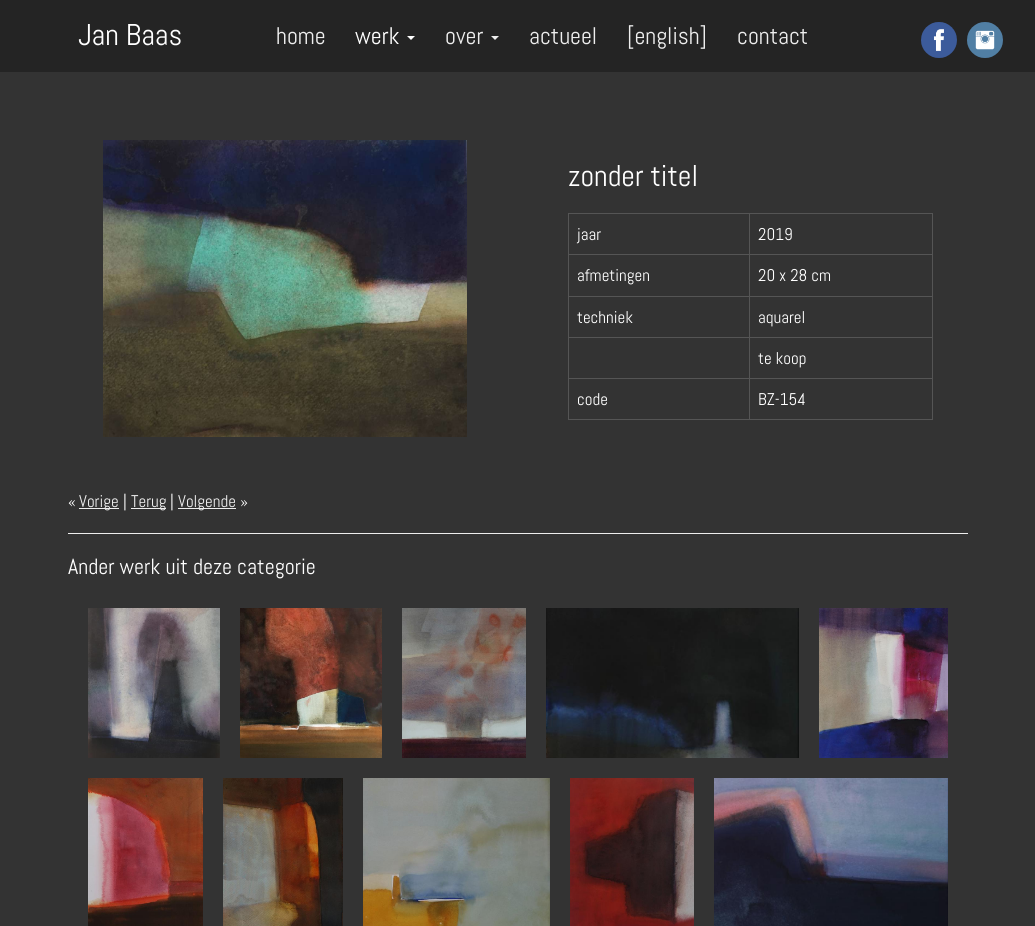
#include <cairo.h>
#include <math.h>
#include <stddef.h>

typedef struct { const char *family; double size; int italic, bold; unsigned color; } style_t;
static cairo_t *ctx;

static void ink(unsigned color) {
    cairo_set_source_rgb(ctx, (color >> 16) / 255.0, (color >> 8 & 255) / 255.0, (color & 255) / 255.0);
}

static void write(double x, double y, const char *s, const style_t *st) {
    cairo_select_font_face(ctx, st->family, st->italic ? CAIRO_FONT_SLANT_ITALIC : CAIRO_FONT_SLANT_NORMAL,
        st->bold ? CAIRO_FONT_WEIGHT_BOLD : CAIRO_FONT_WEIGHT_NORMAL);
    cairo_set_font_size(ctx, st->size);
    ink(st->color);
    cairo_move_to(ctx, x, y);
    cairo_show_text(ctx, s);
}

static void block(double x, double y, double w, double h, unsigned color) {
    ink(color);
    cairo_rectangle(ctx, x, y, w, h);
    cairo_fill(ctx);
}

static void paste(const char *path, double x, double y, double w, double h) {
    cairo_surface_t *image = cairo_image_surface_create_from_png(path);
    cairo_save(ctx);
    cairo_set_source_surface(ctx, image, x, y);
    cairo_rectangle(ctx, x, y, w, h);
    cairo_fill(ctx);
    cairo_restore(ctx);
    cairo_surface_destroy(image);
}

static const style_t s1 = {"Abel", 30, 0, 0, 0xffffff};
static const style_t s2 = {"Abel", 24, 0, 0, 0xeeeeee};
static const style_t s3 = {"Abel", 24, 0, 0, 0xffffff};
static const style_t s4 = {"Abel", 17, 0, 0, 0xffffff};
static const style_t s5 = {"Abel", 17, 0, 0, 0xeeeeee};
static const style_t s6 = {"Abel", 22, 0, 0, 0xffffff};

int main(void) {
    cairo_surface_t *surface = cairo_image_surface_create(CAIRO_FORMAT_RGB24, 1035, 926);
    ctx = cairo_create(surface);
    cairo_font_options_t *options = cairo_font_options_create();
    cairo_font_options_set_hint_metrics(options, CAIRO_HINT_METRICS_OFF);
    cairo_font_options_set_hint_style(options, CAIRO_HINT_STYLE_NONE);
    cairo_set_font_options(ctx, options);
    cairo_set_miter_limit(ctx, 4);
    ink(0x333333);
    cairo_paint(ctx);
    block(0, 0, 1035, 72, 0x242424);
    write(78, 45, "Jan Baas", &s1);
    write(276, 44, "home", &s2);
    write(355, 44, "werk", &s3);
    cairo_new_path(ctx);
    cairo_move_to(ctx, 407, 36);
    cairo_line_to(ctx, 415, 36);
    cairo_line_to(ctx, 411, 40);
    cairo_close_path(ctx);
    cairo_fill(ctx);
    write(445, 44, "over", &s2);
    cairo_new_path(ctx);
    cairo_move_to(ctx, 491, 36);
    cairo_line_to(ctx, 499, 36);
    cairo_line_to(ctx, 495, 40);
    cairo_close_path(ctx);
    cairo_fill(ctx);
    write(529, 44, "actueel", &s2);
    write(627, 44, "[english]", &s2);
    write(737, 44, "contact", &s2);
    paste("pic1.png", 921, 22, 36, 36);
    paste("pic2.png", 967, 22, 36, 36);
    paste("pic3.png", 103, 140, 364, 297);
    write(568, 186, "zonder titel", &s1);
    block(749, 213, 184, 1, 0x555555);
    block(749, 254, 184, 1, 0x555555);
    block(749, 296, 184, 1, 0x555555);
    block(749, 337, 184, 1, 0x555555);
    block(749, 378, 184, 1, 0x555555);
    block(932, 378, 1, 42, 0x555555);
    block(749, 419, 184, 1, 0x555555);
    block(749, 378, 1, 42, 0x555555);
    block(568, 378, 182, 1, 0x555555);
    block(749, 337, 1, 42, 0x555555);
    block(568, 337, 182, 1, 0x555555);
    block(749, 296, 1, 42, 0x555555);
    block(568, 296, 182, 1, 0x555555);
    block(749, 254, 1, 43, 0x555555);
    block(568, 254, 182, 1, 0x555555);
    block(749, 213, 1, 42, 0x555555);
    block(568, 213, 182, 1, 0x555555);
    block(568, 419, 182, 1, 0x555555);
    block(568, 378, 1, 42, 0x555555);
    block(568, 337, 1, 42, 0x555555);
    block(568, 296, 1, 42, 0x555555);
    block(568, 254, 1, 43, 0x555555);
    block(568, 213, 1, 42, 0x555555);
    write(577, 240, "jaar", &s4);
    block(932, 337, 1, 42, 0x555555);
    block(932, 296, 1, 42, 0x555555);
    block(932, 254, 1, 43, 0x555555);
    block(932, 213, 1, 42, 0x555555);
    write(758, 240, "2019", &s4);
    write(577, 281, "afmetingen", &s4);
    write(758, 281, "20 x 28 cm", &s4);
    write(577, 323, "techniek", &s4);
    write(758, 323, "aquarel", &s4);
    write(758, 364, "te koop", &s4);
    write(577, 405, "code", &s4);
    write(758, 405, "BZ-154", &s4);
    write(68, 507, "«", &s4);
    block(79, 508, 40, 1, 0xeeeeee);
    write(79, 507, "Vorige", &s5);
    write(123, 507, "|", &s4);
    block(131, 508, 35, 1, 0xeeeeee);
    write(131, 507, "Terug", &s5);
    write(170, 507, "|", &s4);
    block(178, 508, 58, 1, 0xeeeeee);
    write(178, 507, "Volgende", &s5);
    write(240, 507, "»", &s4);
    block(68, 533, 900, 1, 0xeeeeee);
    write(68, 574, "Ander werk uit deze categorie", &s6);
    paste("pic4.png", 88, 608, 132, 150);
    paste("pic5.png", 240, 608, 142, 150);
    paste("pic6.png", 402, 608, 124, 150);
    paste("pic7.png", 546, 608, 253, 150);
    paste("pic8.png", 819, 608, 129, 150);
    paste("pic9.png", 88, 778, 115, 148);
    paste("pic10.png", 223, 778, 120, 148);
    paste("pic11.png", 363, 778, 187, 148);
    paste("pic12.png", 570, 778, 124, 148);
    paste("pic13.png", 714, 778, 234, 148);
    cairo_surface_write_to_png(surface, "screenshot.png");
    cairo_font_options_destroy(options);
    cairo_destroy(ctx);
    cairo_surface_destroy(surface);
    return 0;
}
